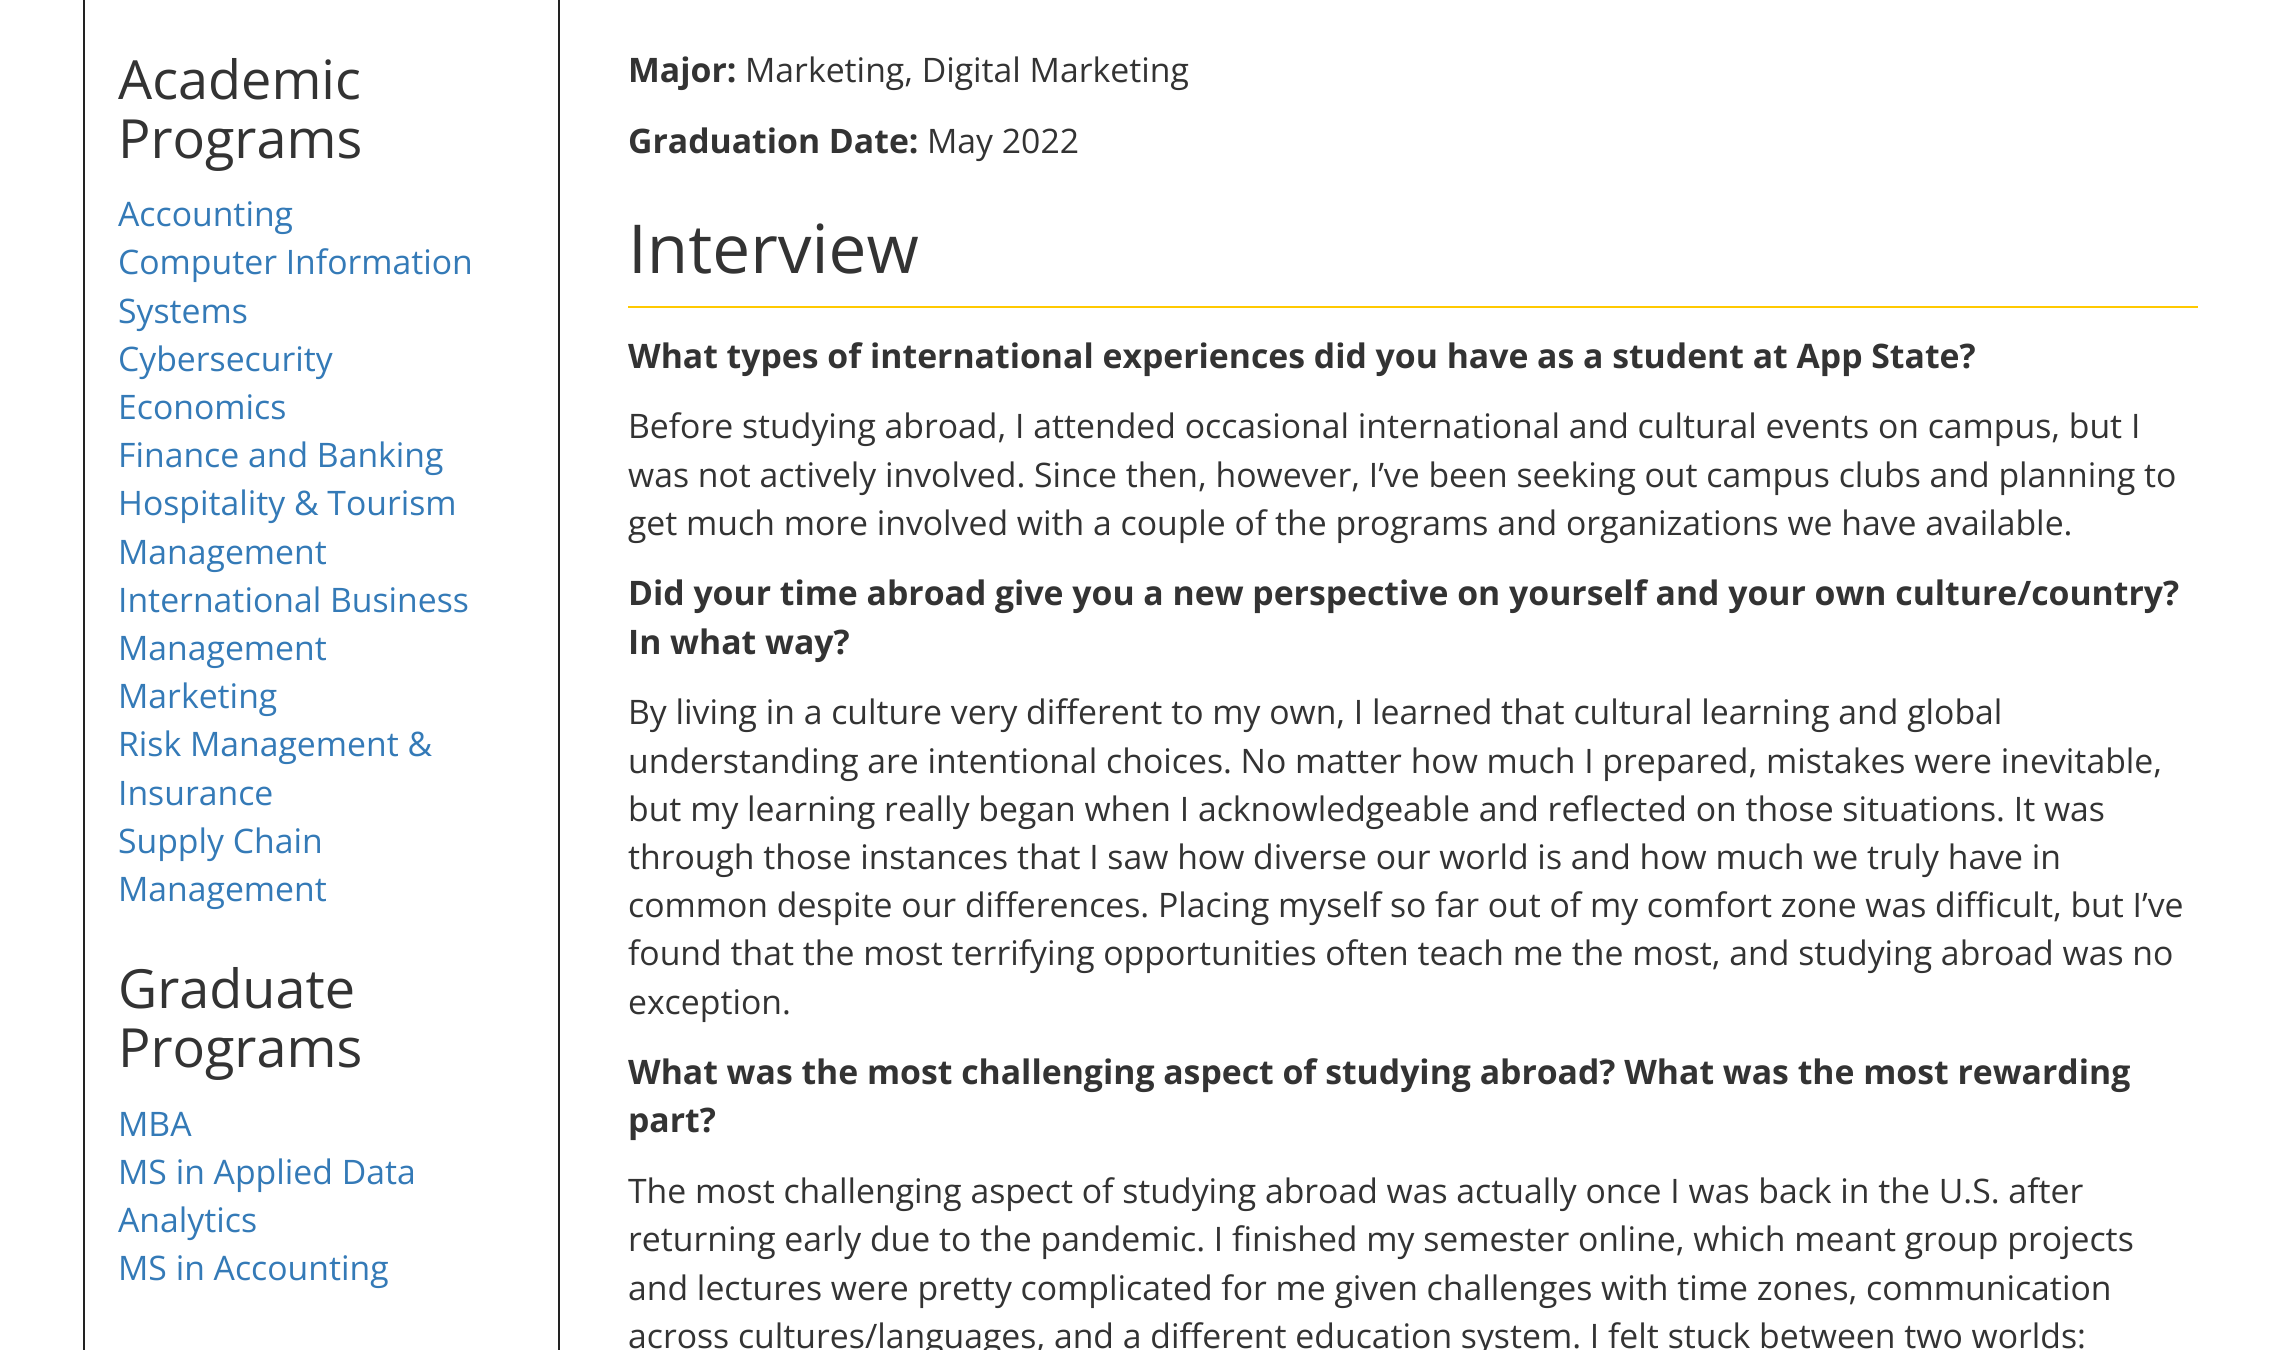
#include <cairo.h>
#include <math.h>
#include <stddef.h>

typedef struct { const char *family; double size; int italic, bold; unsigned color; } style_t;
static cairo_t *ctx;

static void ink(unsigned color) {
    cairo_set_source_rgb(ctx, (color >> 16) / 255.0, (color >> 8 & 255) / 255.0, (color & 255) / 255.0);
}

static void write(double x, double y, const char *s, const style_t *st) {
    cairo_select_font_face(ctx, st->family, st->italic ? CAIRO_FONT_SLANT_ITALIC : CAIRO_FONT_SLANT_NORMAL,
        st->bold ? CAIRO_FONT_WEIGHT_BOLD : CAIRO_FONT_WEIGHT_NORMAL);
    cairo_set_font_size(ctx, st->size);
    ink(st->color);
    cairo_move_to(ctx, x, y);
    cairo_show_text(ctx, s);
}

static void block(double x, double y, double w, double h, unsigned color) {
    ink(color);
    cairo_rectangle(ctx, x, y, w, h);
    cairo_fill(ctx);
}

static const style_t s1 = {"Open Sans", 54, 0, 0, 0x333333};
static const style_t s2 = {"Open Sans", 33.75, 0, 0, 0x347ab7};
static const style_t s3 = {"Open Sans", 33.75, 0, 1, 0x333333};
static const style_t s4 = {"Open Sans", 33.75, 0, 0, 0x333333};
static const style_t s5 = {"Open Sans", 67.5, 0, 0, 0x333333};

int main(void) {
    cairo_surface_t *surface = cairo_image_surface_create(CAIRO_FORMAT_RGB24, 2278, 1350);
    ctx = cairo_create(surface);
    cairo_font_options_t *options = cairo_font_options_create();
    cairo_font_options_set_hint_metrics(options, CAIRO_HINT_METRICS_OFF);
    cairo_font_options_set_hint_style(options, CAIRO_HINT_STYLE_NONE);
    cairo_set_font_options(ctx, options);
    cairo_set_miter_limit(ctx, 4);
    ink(0xffffff);
    cairo_paint(ctx);
    cairo_rectangle(ctx, 84, -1, 475, 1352);
    ink(0x222222);
    cairo_stroke(ctx);
    write(118, 99, "Academic", &s1);
    write(118, 158, "Programs", &s1);
    write(118, 226, "Accounting", &s2);
    write(118, 274, "Computer Information", &s2);
    write(118, 323, "Systems", &s2);
    write(118, 371, "Cybersecurity", &s2);
    write(118, 419, "Economics", &s2);
    write(118, 467, "Finance and Banking", &s2);
    write(118, 515, "Hospitality & Tourism", &s2);
    write(118, 564, "Management", &s2);
    write(118, 612, "International Business", &s2);
    write(118, 660, "Management", &s2);
    write(118, 708, "Marketing", &s2);
    write(118, 756, "Risk Management &", &s2);
    write(118, 805, "Insurance", &s2);
    write(118, 853, "Supply Chain", &s2);
    write(118, 901, "Management", &s2);
    write(118, 1008, "Graduate", &s1);
    write(118, 1067, "Programs", &s1);
    write(118, 1136, "MBA", &s2);
    write(118, 1184, "MS in Applied Data", &s2);
    write(118, 1232, "Analytics", &s2);
    write(118, 1280, "MS in Accounting", &s2);
    write(628, 82, "Major:", &s3);
    write(745, 82, "Marketing, Digital Marketing", &s4);
    write(628, 153, "Graduation Date:", &s3);
    write(927, 153, "May 2022", &s4);
    block(628, 306, 1570, 2, 0xffc900);
    write(628, 273, "Interview", &s5);
    write(628, 368, "What types of international experiences did you have as a student at App State?", &s3);
    write(628, 438, "Before studying abroad, I attended occasional international and cultural events on campus, but I", &s4);
    write(628, 487, "was not actively involved. Since then, however, I’ve been seeking out campus clubs and planning to", &s4);
    write(628, 535, "get much more involved with a couple of the programs and organizations we have available.", &s4);
    write(628, 605, "Did your time abroad give you a new perspective on yourself and your own culture/country?", &s3);
    write(628, 654, "In what way?", &s3);
    write(628, 724, "By living in a culture very different to my own, I learned that cultural learning and global", &s4);
    write(628, 773, "understanding are intentional choices. No matter how much I prepared, mistakes were inevitable,", &s4);
    write(628, 821, "but my learning really began when I acknowledgeable and reflected on those situations. It was", &s4);
    write(628, 869, "through those instances that I saw how diverse our world is and how much we truly have in", &s4);
    write(628, 917, "common despite our differences. Placing myself so far out of my comfort zone was difficult, but I’ve", &s4);
    write(628, 965, "found that the most terrifying opportunities often teach me the most, and studying abroad was no", &s4);
    write(628, 1014, "exception.", &s4);
    write(628, 1084, "What was the most challenging aspect of studying abroad? What was the most rewarding", &s3);
    write(628, 1132, "part?", &s3);
    write(628, 1203, "The most challenging aspect of studying abroad was actually once I was back in the U.S. after", &s4);
    write(628, 1251, "returning early due to the pandemic. I finished my semester online, which meant group projects", &s4);
    write(628, 1300, "and lectures were pretty complicated for me given challenges with time zones, communication", &s4);
    write(628, 1348, "across cultures/languages, and a different education system. I felt stuck between two worlds:", &s4);
    cairo_surface_write_to_png(surface, "screenshot.png");
    cairo_font_options_destroy(options);
    cairo_destroy(ctx);
    cairo_surface_destroy(surface);
    return 0;
}
